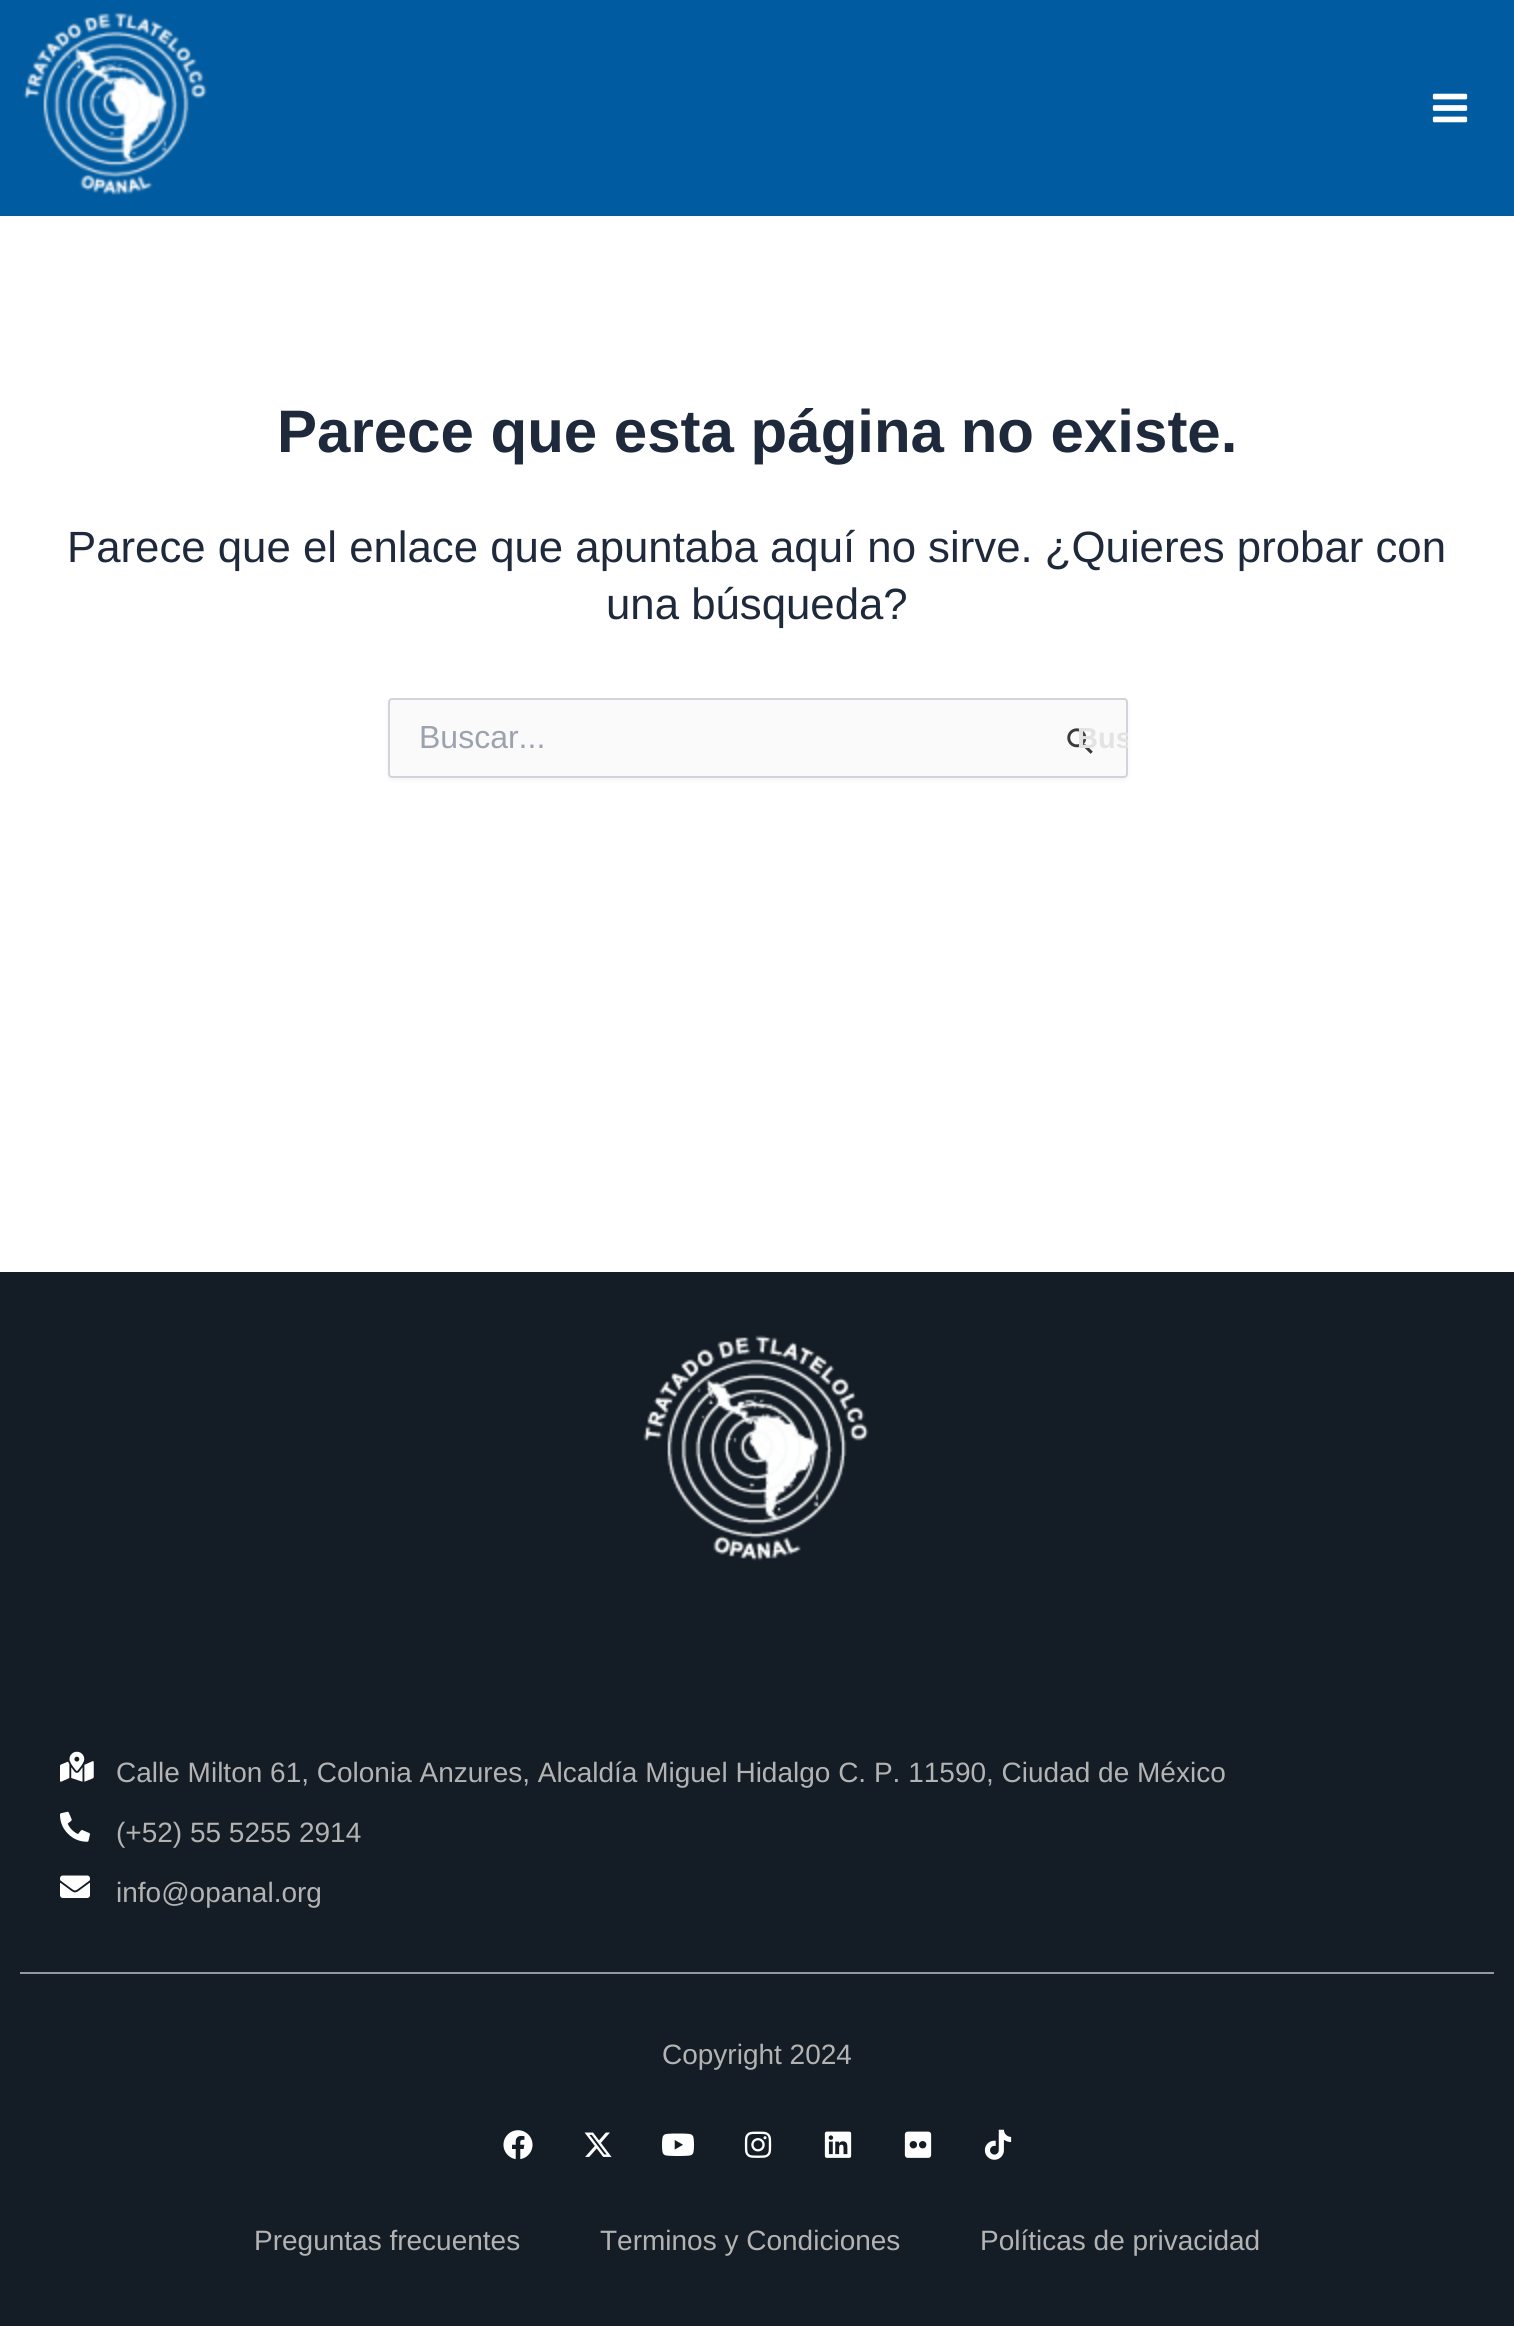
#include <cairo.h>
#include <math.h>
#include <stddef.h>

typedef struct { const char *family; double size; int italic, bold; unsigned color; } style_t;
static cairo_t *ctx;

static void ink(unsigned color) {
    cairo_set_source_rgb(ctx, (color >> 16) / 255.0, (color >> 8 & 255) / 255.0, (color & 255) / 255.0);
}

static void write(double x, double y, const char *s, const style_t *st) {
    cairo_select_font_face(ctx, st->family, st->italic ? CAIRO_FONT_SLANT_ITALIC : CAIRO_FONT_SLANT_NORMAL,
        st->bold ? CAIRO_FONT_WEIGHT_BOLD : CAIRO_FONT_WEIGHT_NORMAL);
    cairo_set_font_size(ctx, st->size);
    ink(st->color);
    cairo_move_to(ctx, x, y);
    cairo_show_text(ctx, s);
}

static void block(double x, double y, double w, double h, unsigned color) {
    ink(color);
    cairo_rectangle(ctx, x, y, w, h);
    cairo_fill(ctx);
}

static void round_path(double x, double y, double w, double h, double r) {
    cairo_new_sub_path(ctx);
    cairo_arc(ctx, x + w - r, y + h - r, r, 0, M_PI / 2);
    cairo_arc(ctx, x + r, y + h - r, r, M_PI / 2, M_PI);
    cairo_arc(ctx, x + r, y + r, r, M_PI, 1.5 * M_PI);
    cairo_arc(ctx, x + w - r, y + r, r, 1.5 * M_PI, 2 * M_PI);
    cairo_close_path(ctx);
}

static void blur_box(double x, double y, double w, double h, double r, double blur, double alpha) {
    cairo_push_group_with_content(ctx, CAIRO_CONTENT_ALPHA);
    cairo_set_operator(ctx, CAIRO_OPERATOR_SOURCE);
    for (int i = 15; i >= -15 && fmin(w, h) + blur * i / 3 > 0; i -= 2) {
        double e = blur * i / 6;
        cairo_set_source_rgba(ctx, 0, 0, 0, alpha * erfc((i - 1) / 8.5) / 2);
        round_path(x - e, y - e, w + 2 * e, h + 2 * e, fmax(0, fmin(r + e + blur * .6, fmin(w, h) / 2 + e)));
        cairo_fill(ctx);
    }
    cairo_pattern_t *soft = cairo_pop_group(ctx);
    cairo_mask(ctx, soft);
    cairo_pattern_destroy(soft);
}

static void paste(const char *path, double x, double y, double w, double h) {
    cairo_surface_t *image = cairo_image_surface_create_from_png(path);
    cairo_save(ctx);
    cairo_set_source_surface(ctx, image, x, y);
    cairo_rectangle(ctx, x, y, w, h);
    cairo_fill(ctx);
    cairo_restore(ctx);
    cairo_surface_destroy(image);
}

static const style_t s1 = {"Liberation Sans", 60, 0, 1, 0x1e293b};
static const style_t s2 = {"Liberation Sans", 43.75, 0, 0, 0x1e293b};
static const style_t s3 = {"Liberation Sans", 32, 0, 0, 0x9ca3af};
static const style_t s4 = {"Liberation Sans", 29, 0, 1, 0xe3e3e3};
static const style_t s5 = {"Liberation Sans", 28, 0, 0, 0xb3b3b3};

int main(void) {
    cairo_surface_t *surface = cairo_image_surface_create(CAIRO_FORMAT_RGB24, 1514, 2326);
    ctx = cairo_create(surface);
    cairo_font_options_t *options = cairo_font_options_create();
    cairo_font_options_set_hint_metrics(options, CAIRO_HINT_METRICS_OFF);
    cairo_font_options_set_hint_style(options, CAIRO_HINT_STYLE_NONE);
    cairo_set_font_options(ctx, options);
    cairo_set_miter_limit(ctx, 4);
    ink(0xffffff);
    cairo_paint(ctx);
    block(0, 0, 1514, 216, 0x005ba0);
    paste("pic1.png", 23, 12, 184, 183);
    paste("pic2.png", 1432, 93, 36, 30);
    write(277, 452, "Parece que esta página no existe.", &s1);
    write(67, 562, "Parece que el enlace que apuntaba aquí no sirve. ¿Quieres probar con", &s2);
    write(606, 619, "una búsqueda?", &s2);
    ink(0x000000);
    blur_box(388, 700, 740, 80, 4, 2, 0.05);
    ink(0xfafafa);
    round_path(389, 699, 738, 78, 3);
    cairo_fill_preserve(ctx);
    ink(0xd1d5db);
    cairo_stroke(ctx);
    write(419, 748, "Buscar...", &s3);
    paste("pic3.png", 1067, 728, 26, 26);
    cairo_save(ctx);
    round_path(1038, 698, 90, 82, 4);
    cairo_clip(ctx);
    write(1077, 748, "Bus", &s4);
    cairo_restore(ctx);
    block(0, 1272, 1514, 1054, 0x141c25);
    paste("pic4.png", 643, 1335, 226, 226);
    paste("pic5.png", 60, 1751, 34, 31);
    write(116, 1782, "Calle Milton 61, Colonia Anzures, Alcaldía Miguel Hidalgo C. P. 11590, Ciudad de México", &s5);
    paste("pic6.png", 60, 1811, 30, 31);
    write(116, 1842, "(+52) 55 5255 2914", &s5);
    paste("pic7.png", 60, 1875, 30, 23);
    write(116, 1902, "info@opanal.org", &s5);
    block(20, 1972, 1474, 2, 0x95999d);
    write(662, 2064, "Copyright 2024", &s5);
    paste("pic8.png", 503, 2130, 30, 30);
    paste("pic9.png", 584, 2132, 28, 25);
    paste("pic10.png", 662, 2133, 32, 23);
    paste("pic11.png", 744, 2131, 28, 27);
    paste("pic12.png", 824, 2131, 28, 27);
    paste("pic13.png", 904, 2131, 28, 27);
    paste("pic14.png", 984, 2129, 28, 31);
    write(254, 2250, "Preguntas frecuentes", &s5);
    write(600, 2250, "Terminos y Condiciones", &s5);
    write(980, 2250, "Políticas de privacidad", &s5);
    cairo_surface_write_to_png(surface, "screenshot.png");
    cairo_font_options_destroy(options);
    cairo_destroy(ctx);
    cairo_surface_destroy(surface);
    return 0;
}
